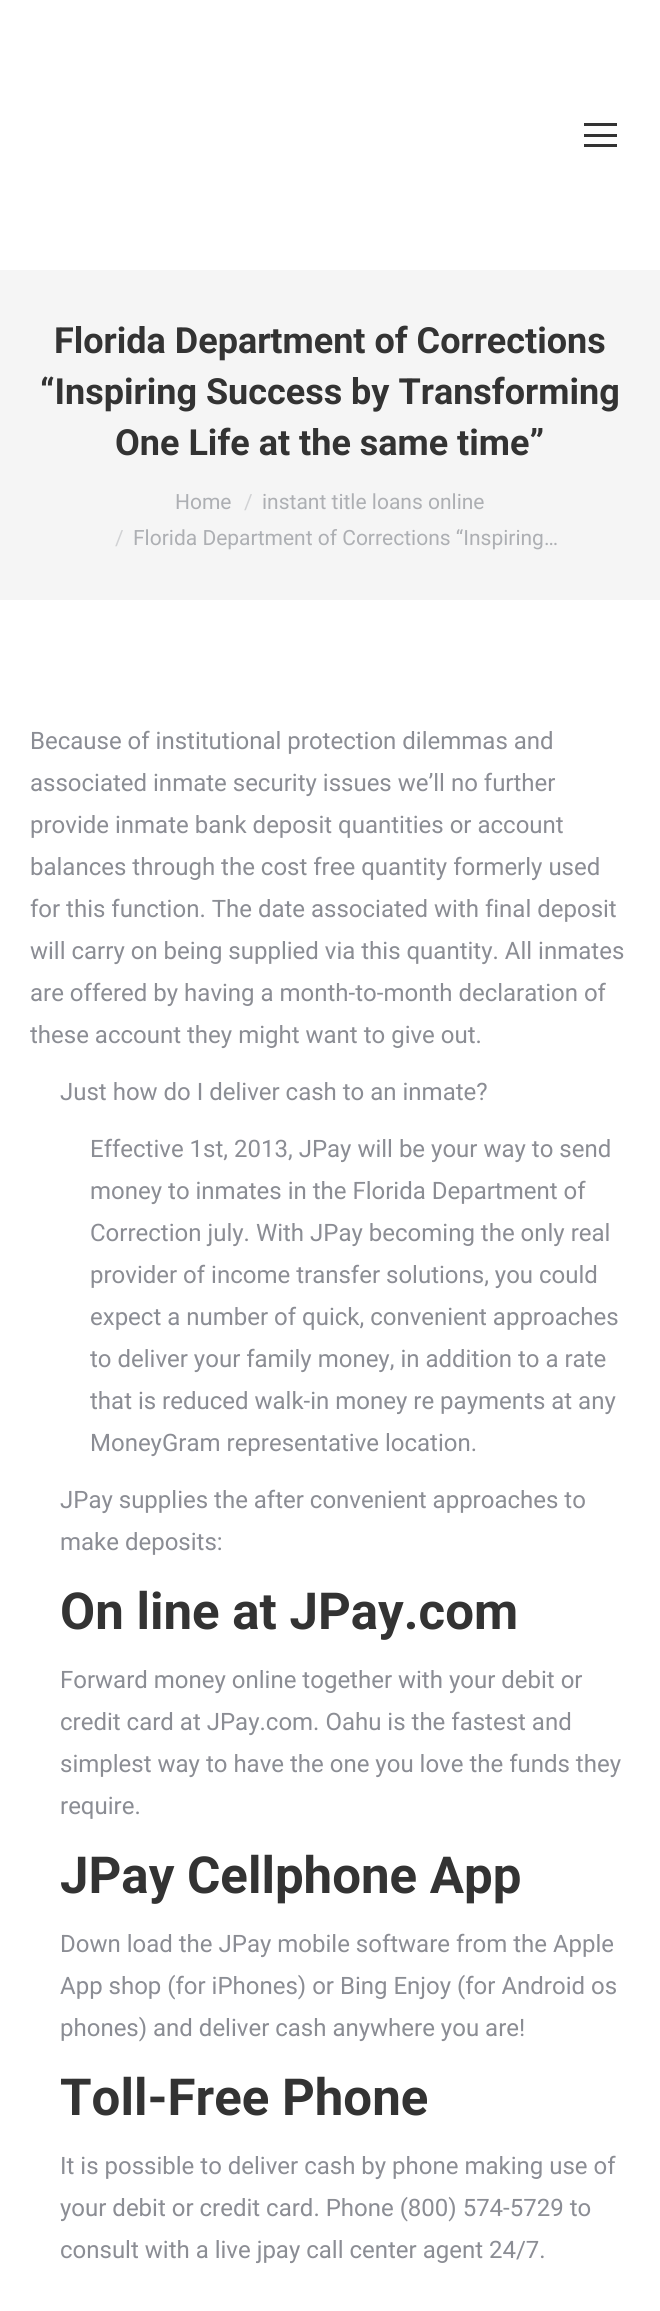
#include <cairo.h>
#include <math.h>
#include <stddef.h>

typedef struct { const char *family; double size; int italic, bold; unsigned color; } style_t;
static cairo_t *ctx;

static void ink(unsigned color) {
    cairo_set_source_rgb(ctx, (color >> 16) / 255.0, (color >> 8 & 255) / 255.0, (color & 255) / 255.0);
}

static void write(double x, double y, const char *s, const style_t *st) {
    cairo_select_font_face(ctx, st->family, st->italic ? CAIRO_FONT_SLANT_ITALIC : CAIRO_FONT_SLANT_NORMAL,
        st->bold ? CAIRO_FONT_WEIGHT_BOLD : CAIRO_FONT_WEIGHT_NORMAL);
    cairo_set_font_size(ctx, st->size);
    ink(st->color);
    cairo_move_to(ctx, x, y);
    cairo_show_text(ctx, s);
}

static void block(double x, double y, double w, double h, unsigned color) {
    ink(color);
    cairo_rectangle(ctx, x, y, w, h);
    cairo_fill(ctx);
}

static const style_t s1 = {"Roboto", 36, 0, 1, 0x333333};
static const style_t s2 = {"Roboto", 21, 0, 0, 0xadafb3};
static const style_t s3 = {"Roboto", 21, 0, 0, 0xd1d2d4};
static const style_t s4 = {"Roboto", 24, 0, 0, 0x8b8d94};
static const style_t s5 = {"Roboto", 51, 0, 1, 0x333333};

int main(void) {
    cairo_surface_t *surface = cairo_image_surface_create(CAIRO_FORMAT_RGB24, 660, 2311);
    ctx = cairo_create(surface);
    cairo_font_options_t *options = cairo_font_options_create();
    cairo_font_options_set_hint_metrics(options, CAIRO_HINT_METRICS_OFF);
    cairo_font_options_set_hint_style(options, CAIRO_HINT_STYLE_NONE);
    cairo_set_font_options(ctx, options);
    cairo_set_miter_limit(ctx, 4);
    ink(0xffffff);
    cairo_paint(ctx);
    block(584, 123, 33, 3, 0x333333);
    block(584, 134, 33, 3, 0x333333);
    block(584, 144, 33, 3, 0x333333);
    block(0, 270, 660, 330, 0xf5f5f5);
    write(54, 353, "Florida Department of Corrections", &s1);
    write(40, 404, "“Inspiring Success by Transforming", &s1);
    write(115, 455, "One Life at the same time”", &s1);
    write(175, 509, "Home", &s2);
    write(244, 509, "/", &s3);
    write(262, 509, "instant title loans online", &s2);
    write(115, 545, "/", &s3);
    write(133, 545, "Florida Department of Corrections “Inspiring…", &s2);
    write(30, 749, "Because of institutional protection dilemmas and", &s4);
    write(30, 791, "associated inmate security issues we’ll no further", &s4);
    write(30, 833, "provide inmate bank deposit quantities or account", &s4);
    write(30, 875, "balances through the cost free quantity formerly used", &s4);
    write(30, 917, "for this function. The date associated with final deposit", &s4);
    write(30, 959, "will carry on being supplied via this quantity. All inmates", &s4);
    write(30, 1001, "are offered by having a month-to-month declaration of", &s4);
    write(30, 1043, "these account they might want to give out.", &s4);
    write(60, 1100, "Just how do I deliver cash to an inmate?", &s4);
    write(90, 1157, "Effective 1st, 2013, JPay will be your way to send", &s4);
    write(90, 1199, "money to inmates in the Florida Department of", &s4);
    write(90, 1241, "Correction july. With JPay becoming the only real", &s4);
    write(90, 1283, "provider of income transfer solutions, you could", &s4);
    write(90, 1325, "expect a number of quick, convenient approaches", &s4);
    write(90, 1367, "to deliver your family money, in addition to a rate", &s4);
    write(90, 1409, "that is reduced walk-in money re payments at any", &s4);
    write(90, 1451, "MoneyGram representative location.", &s4);
    write(60, 1508, "JPay supplies the after convenient approaches to", &s4);
    write(60, 1550, "make deposits:", &s4);
    write(60, 1629, "On line at JPay.com", &s5);
    write(60, 1688, "Forward money online together with your debit or", &s4);
    write(60, 1730, "credit card at JPay.com. Oahu is the fastest and", &s4);
    write(60, 1772, "simplest way to have the one you love the funds they", &s4);
    write(60, 1814, "require.", &s4);
    write(60, 1893, "JPay Cellphone App", &s5);
    write(60, 1952, "Down load the JPay mobile software from the Apple", &s4);
    write(60, 1994, "App shop (for iPhones) or Bing Enjoy (for Android os", &s4);
    write(60, 2036, "phones) and deliver cash anywhere you are!", &s4);
    write(60, 2115, "Toll-Free Phone", &s5);
    write(60, 2174, "It is possible to deliver cash by phone making use of", &s4);
    write(60, 2216, "your debit or credit card. Phone (800) 574-5729 to", &s4);
    write(60, 2258, "consult with a live jpay call center agent 24/7.", &s4);
    cairo_surface_write_to_png(surface, "screenshot.png");
    cairo_font_options_destroy(options);
    cairo_destroy(ctx);
    cairo_surface_destroy(surface);
    return 0;
}
